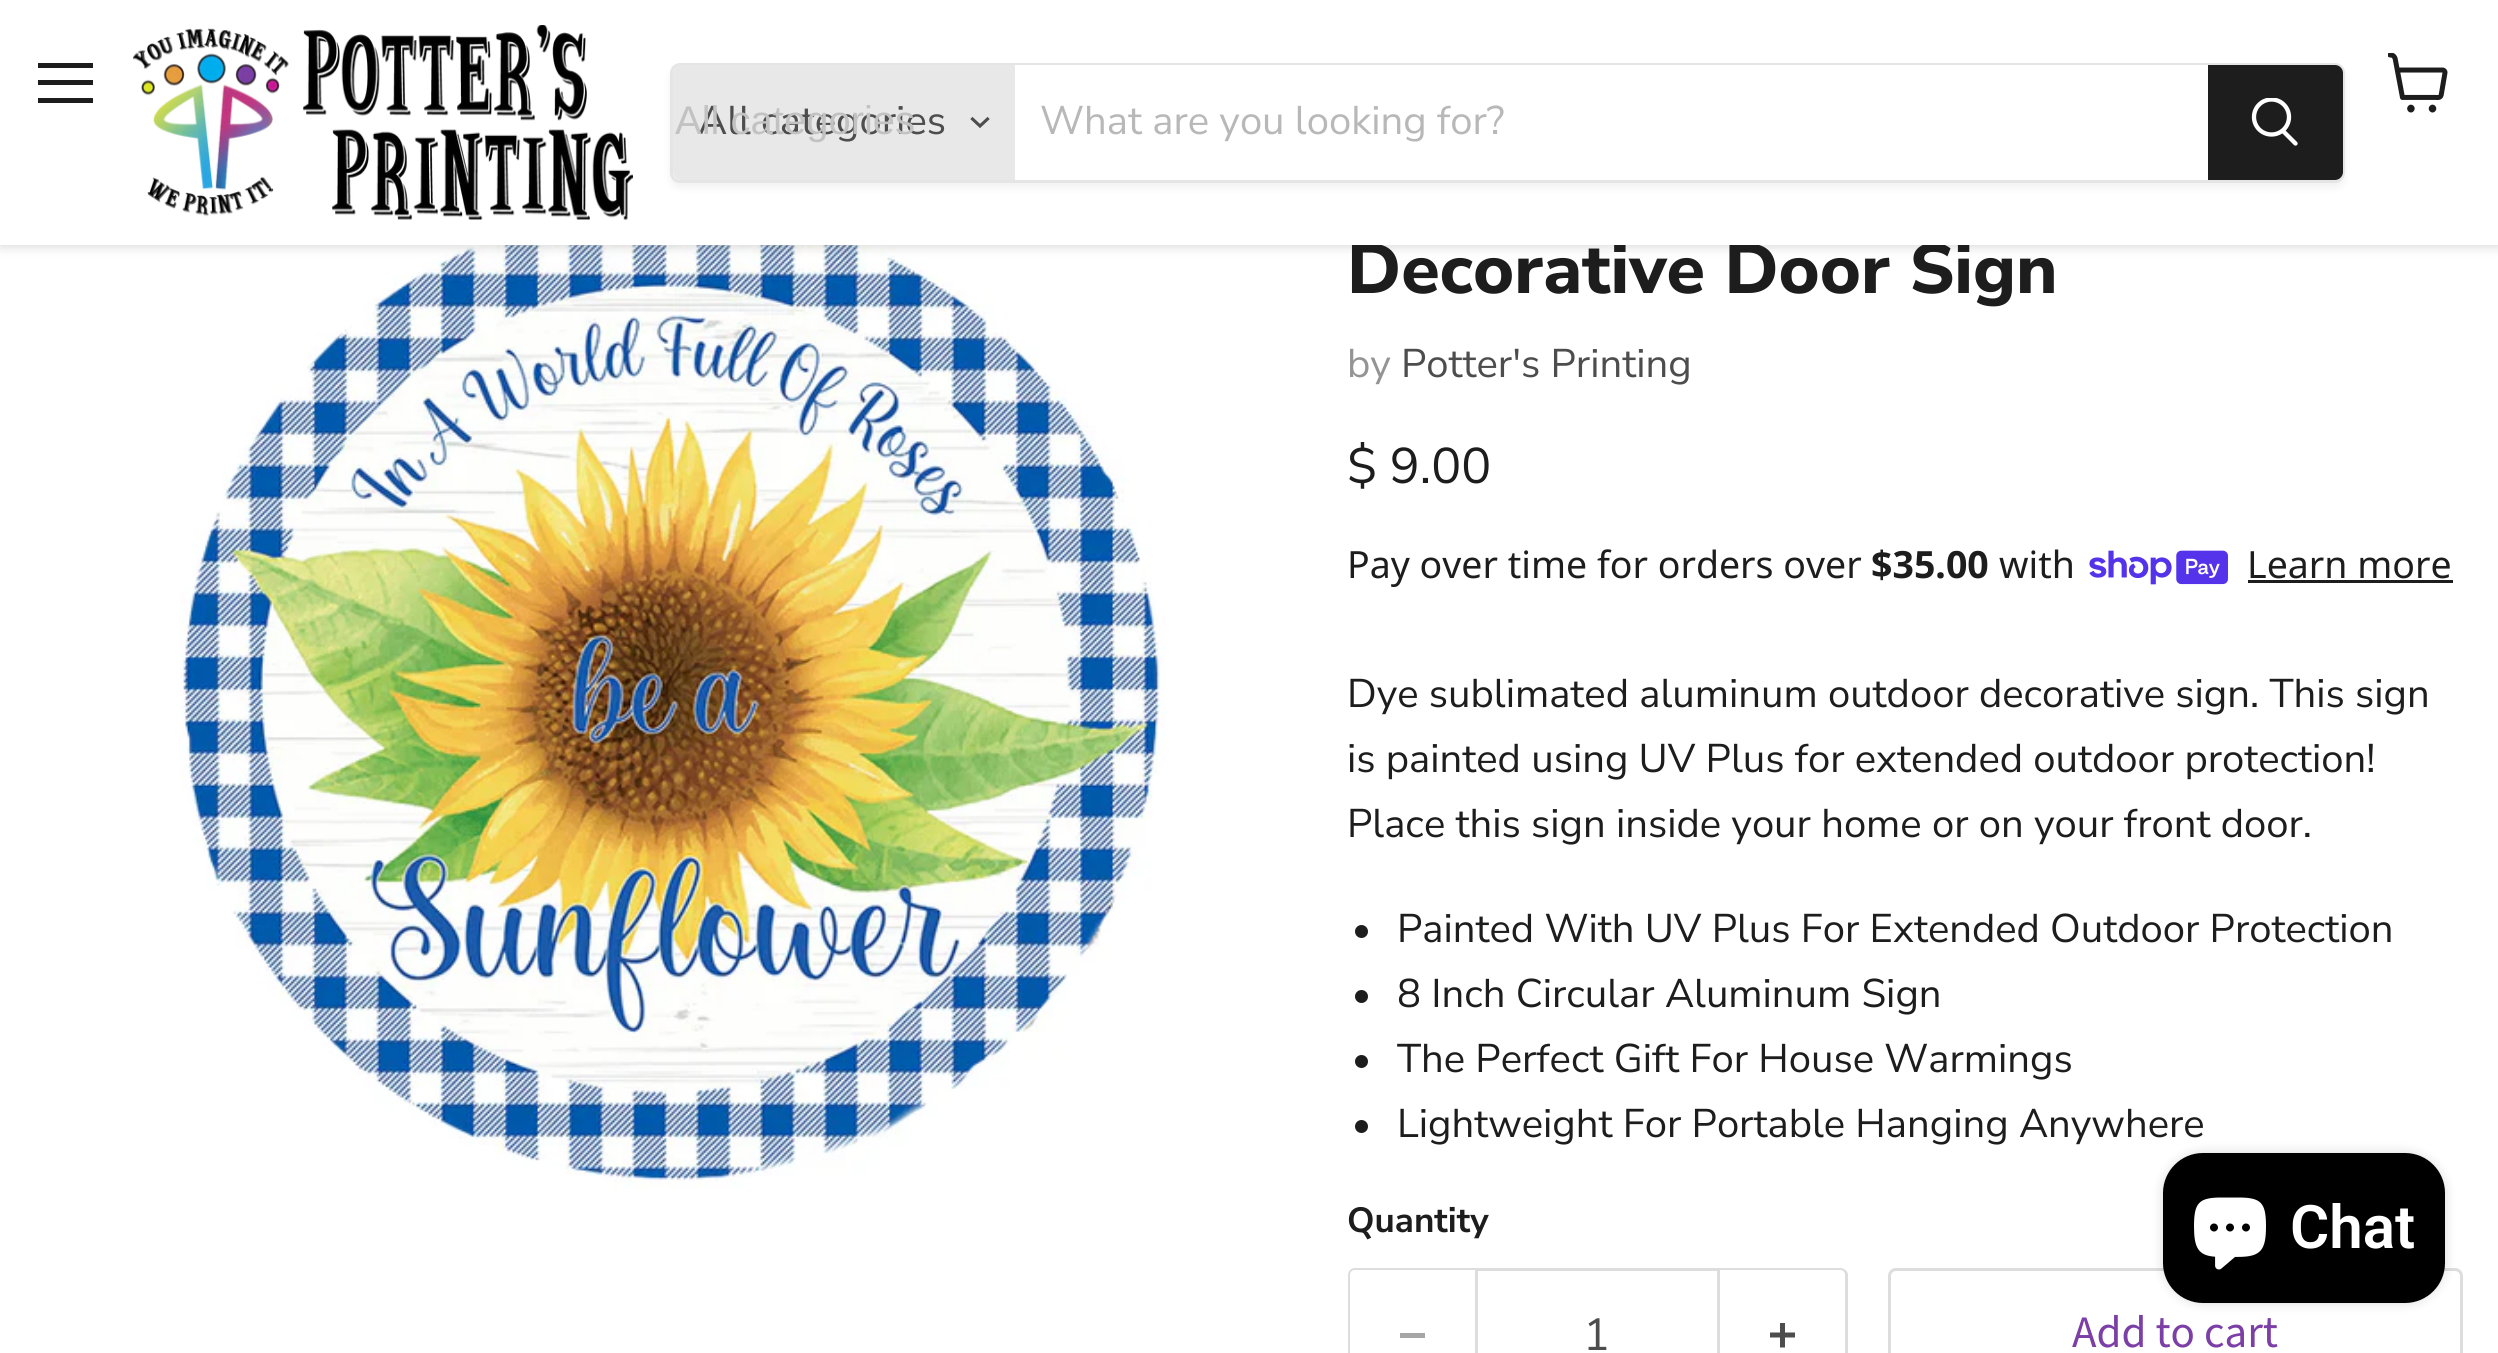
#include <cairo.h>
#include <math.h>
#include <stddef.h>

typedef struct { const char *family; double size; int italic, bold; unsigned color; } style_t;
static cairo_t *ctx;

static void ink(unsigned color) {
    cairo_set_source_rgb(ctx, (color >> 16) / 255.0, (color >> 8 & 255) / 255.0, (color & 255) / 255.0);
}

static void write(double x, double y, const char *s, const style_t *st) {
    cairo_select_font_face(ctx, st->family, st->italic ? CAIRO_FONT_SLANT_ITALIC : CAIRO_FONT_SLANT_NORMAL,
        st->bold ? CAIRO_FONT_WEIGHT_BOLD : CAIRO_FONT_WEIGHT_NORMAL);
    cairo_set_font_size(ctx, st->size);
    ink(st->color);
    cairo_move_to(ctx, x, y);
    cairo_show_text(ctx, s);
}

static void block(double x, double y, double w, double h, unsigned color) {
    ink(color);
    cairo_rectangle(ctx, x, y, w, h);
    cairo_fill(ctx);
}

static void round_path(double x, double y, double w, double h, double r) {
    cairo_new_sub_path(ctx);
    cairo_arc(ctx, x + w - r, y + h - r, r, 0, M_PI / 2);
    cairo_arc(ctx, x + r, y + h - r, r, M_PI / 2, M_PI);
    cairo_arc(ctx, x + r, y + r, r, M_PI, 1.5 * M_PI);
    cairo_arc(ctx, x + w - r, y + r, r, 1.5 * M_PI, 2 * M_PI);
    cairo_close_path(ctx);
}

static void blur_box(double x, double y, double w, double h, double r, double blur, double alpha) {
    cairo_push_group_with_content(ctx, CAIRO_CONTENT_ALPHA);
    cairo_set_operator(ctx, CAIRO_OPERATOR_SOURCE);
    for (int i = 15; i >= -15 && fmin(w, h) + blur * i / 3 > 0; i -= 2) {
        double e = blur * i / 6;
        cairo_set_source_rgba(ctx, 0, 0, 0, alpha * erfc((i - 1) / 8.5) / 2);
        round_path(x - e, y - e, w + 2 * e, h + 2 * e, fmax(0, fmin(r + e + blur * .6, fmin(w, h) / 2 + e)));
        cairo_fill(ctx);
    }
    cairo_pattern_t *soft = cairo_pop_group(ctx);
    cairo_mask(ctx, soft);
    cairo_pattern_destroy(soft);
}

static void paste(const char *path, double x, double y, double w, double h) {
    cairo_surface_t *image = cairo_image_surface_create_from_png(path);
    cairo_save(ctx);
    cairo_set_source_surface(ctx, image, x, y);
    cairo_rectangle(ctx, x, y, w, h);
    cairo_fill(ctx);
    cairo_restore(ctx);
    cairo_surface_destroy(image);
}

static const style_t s1 = {"Nunito Sans ExtraBold", 70, 0, 0, 0x1d1d1d};
static const style_t s2 = {"Nunito Sans", 40, 0, 0, 0x4d4d4d};
static const style_t s3 = {"Liberation Sans", 40, 0, 0, 0xc2c2c2};
static const style_t s4 = {"Nunito Sans", 40, 0, 0, 0xb8b8b8};
static const style_t s5 = {"Nunito Sans", 40, 0, 0, 0x949494};
static const style_t s6 = {"Nunito Sans", 50, 0, 0, 0x1d1d1d};
static const style_t s7 = {"Noto Sans", 37.5, 0, 0, 0x1d1d1d};
static const style_t s8 = {"Noto Sans", 37.5, 0, 1, 0x1d1d1d};
static const style_t s9 = {"Nunito Sans", 40, 0, 0, 0x1d1d1d};
static const style_t s10 = {"Nunito Sans", 35, 0, 1, 0x1d1d1d};
static const style_t s11 = {"Nunito Sans", 45, 0, 0, 0x4d4d4d};
static const style_t s12 = {"Source Sans Pro", 45, 0, 0, 0x7b3fa6};
static const style_t s13 = {"Roboto SemiBold", 60, 0, 0, 0xffffff};

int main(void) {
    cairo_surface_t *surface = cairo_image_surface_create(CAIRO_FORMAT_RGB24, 2498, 1353);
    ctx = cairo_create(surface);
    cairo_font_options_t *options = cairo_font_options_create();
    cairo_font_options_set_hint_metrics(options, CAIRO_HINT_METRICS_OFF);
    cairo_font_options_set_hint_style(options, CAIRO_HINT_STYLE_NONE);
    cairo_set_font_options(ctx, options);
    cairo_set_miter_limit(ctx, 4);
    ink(0xffffff);
    cairo_paint(ctx);
    paste("pic3.png", 180, 245, 986, 944);
    ink(0x808080);
    blur_box(0, 3, 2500, 245, 0, 5, 0.25);
    write(1347, 293, "Decorative Door Sign", &s1);
    block(0, 0, 2498, 245, 0xffffff);
    block(38, 63, 55, 5, 0x1d1d1d);
    block(38, 80, 55, 5, 0x1d1d1d);
    block(38, 98, 55, 5, 0x1d1d1d);
    paste("pic1.png", 2388, 53, 60, 60);
    paste("pic2.png", 133, 25, 500, 195);
    cairo_save(ctx);
    cairo_set_fill_rule(ctx, CAIRO_FILL_RULE_EVEN_ODD);
    cairo_new_path(ctx);
    cairo_move_to(ctx, 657, 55);
    cairo_line_to(ctx, 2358, 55);
    cairo_line_to(ctx, 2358, 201);
    cairo_line_to(ctx, 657, 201);
    cairo_close_path(ctx);
    cairo_move_to(ctx, 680, 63);
    cairo_line_to(ctx, 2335, 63);
    cairo_curve_to(ctx, 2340.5, 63, 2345, 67.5, 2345, 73);
    cairo_line_to(ctx, 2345, 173);
    cairo_curve_to(ctx, 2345, 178.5, 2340.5, 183, 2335, 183);
    cairo_line_to(ctx, 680, 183);
    cairo_curve_to(ctx, 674.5, 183, 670, 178.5, 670, 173);
    cairo_line_to(ctx, 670, 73);
    cairo_curve_to(ctx, 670, 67.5, 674.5, 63, 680, 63);
    cairo_close_path(ctx);
    cairo_clip(ctx);
    ink(0x808080);
    blur_box(670, 68, 1675, 120, 10, 4, 0.11);
    cairo_restore(ctx);
    round_path(671.5, 64.5, 1672, 117, 8.5);
    cairo_set_source_rgba(ctx, 0.502, 0.502, 0.502, 0.2);
    cairo_set_line_width(ctx, 3);
    cairo_stroke(ctx);
    ink(0xe8e8e8);
    cairo_new_path(ctx);
    cairo_move_to(ctx, 681, 65);
    cairo_line_to(ctx, 1015, 65);
    cairo_line_to(ctx, 1015, 180);
    cairo_line_to(ctx, 681, 180);
    cairo_curve_to(ctx, 676.5, 180, 673, 176.5, 673, 172);
    cairo_line_to(ctx, 673, 73);
    cairo_curve_to(ctx, 673, 68.5, 676.5, 65, 681, 65);
    cairo_close_path(ctx);
    cairo_fill(ctx);
    write(698, 134, "All categories", &s2);
    write(675, 134, "All categories", &s3);
    cairo_new_path(ctx);
    cairo_move_to(ctx, 980, 126);
    cairo_line_to(ctx, 987.5, 119);
    cairo_move_to(ctx, 980, 126);
    cairo_line_to(ctx, 972.5, 119);
    ink(0x4d4d4d);
    cairo_set_line_width(ctx, 3.1);
    cairo_set_line_cap(ctx, CAIRO_LINE_CAP_SQUARE);
    cairo_stroke(ctx);
    block(1015, 65, 1193, 1, 0xffffff);
    write(1040, 134, "What are you looking for?", &s4);
    ink(0x1d1d1d);
    cairo_new_path(ctx);
    cairo_move_to(ctx, 2209.5, 66.5);
    cairo_line_to(ctx, 2335, 66.5);
    cairo_curve_to(ctx, 2338.5, 66.5, 2341.5, 69.5, 2341.5, 73);
    cairo_line_to(ctx, 2341.5, 172);
    cairo_curve_to(ctx, 2341.5, 175.5, 2338.5, 178.5, 2335, 178.5);
    cairo_line_to(ctx, 2209.5, 178.5);
    cairo_close_path(ctx);
    cairo_fill_preserve(ctx);
    cairo_set_line_width(ctx, 3);
    cairo_set_line_cap(ctx, CAIRO_LINE_CAP_BUTT);
    cairo_stroke(ctx);
    cairo_new_path(ctx);
    cairo_move_to(ctx, 2295.5, 143.5);
    cairo_line_to(ctx, 2283.5, 131.5);
    ink(0xffffff);
    cairo_set_line_width(ctx, 4.3);
    cairo_set_line_cap(ctx, CAIRO_LINE_CAP_ROUND);
    cairo_stroke(ctx);
    cairo_save(ctx);
    cairo_rectangle(ctx, 2250, 98, 50, 52);
    cairo_clip(ctx);
    cairo_arc(ctx, 2271.5, 117, 17.5, 0, 2 * M_PI);
    cairo_set_line_cap(ctx, CAIRO_LINE_CAP_BUTT);
    cairo_stroke(ctx);
    cairo_restore(ctx);
    write(1347, 377, "by", &s5);
    write(1401, 377, "Potter's Printing", &s2);
    write(1347, 483, "$ 9.00", &s6);
    write(1347, 578, "Pay over time for orders over", &s7);
    write(1871, 578, "$35.00", &s8);
    write(1999, 578, "with", &s7);
    paste("pic4.png", 2089, 550, 139, 35);
    write(2247, 578, "Learn more", &s7);
    block(2248, 580, 205, 3, 0x1d1d1d);
    write(1347, 707, "Dye sublimated aluminum outdoor decorative sign. This sign", &s9);
    write(1347, 772, "is painted using UV Plus for extended outdoor protection!", &s9);
    write(1347, 837, "Place this sign inside your home or on your front door.", &s9);
    cairo_new_path(ctx);
    cairo_arc(ctx, 1361.5, 931.5, 6.5, 0, 2 * M_PI);
    cairo_fill(ctx);
    write(1397, 942, "Painted With UV Plus For Extended Outdoor Protection", &s9);
    cairo_new_path(ctx);
    cairo_arc(ctx, 1361.5, 996.5, 6.5, 0, 2 * M_PI);
    cairo_fill(ctx);
    write(1397, 1007, "8 Inch Circular Aluminum Sign", &s9);
    cairo_new_path(ctx);
    cairo_arc(ctx, 1361.5, 1061.5, 6.5, 0, 2 * M_PI);
    cairo_fill(ctx);
    write(1397, 1072, "The Perfect Gift For House Warmings", &s9);
    cairo_new_path(ctx);
    cairo_arc(ctx, 1361.5, 1126.5, 6.5, 0, 2 * M_PI);
    cairo_fill(ctx);
    write(1397, 1137, "Lightweight For Portable Hanging Anywhere", &s9);
    write(1347, 1232, "Quantity", &s10);
    ink(0xdddddd);
    cairo_set_fill_rule(ctx, CAIRO_FILL_RULE_EVEN_ODD);
    cairo_new_path(ctx);
    cairo_move_to(ctx, 1355, 1268);
    cairo_line_to(ctx, 1475, 1268);
    cairo_line_to(ctx, 1475, 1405);
    cairo_line_to(ctx, 1355, 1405);
    cairo_curve_to(ctx, 1351, 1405, 1348, 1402, 1348, 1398);
    cairo_line_to(ctx, 1348, 1275);
    cairo_curve_to(ctx, 1348, 1271, 1351, 1268, 1355, 1268);
    cairo_close_path(ctx);
    cairo_move_to(ctx, 1355, 1270);
    cairo_line_to(ctx, 1475, 1270);
    cairo_line_to(ctx, 1475, 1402);
    cairo_line_to(ctx, 1355, 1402);
    cairo_curve_to(ctx, 1352, 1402, 1350, 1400, 1350, 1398);
    cairo_line_to(ctx, 1350, 1275);
    cairo_curve_to(ctx, 1350, 1272, 1352, 1270, 1355, 1270);
    cairo_close_path(ctx);
    cairo_fill(ctx);
    block(1400, 1333, 25, 5, 0xa6a6a6);
    cairo_rectangle(ctx, 1476.5, 1269.5, 242, 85);
    ink(0xdddddd);
    cairo_set_line_width(ctx, 3);
    cairo_set_line_cap(ctx, CAIRO_LINE_CAP_BUTT);
    cairo_stroke(ctx);
    write(1583, 1350, "1", &s11);
    ink(0xdddddd);
    cairo_new_path(ctx);
    cairo_move_to(ctx, 1720, 1268);
    cairo_line_to(ctx, 1840, 1268);
    cairo_curve_to(ctx, 1844, 1268, 1848, 1271, 1848, 1275);
    cairo_line_to(ctx, 1848, 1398);
    cairo_curve_to(ctx, 1848, 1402, 1844, 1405, 1840, 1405);
    cairo_line_to(ctx, 1720, 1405);
    cairo_close_path(ctx);
    cairo_move_to(ctx, 1720, 1270);
    cairo_line_to(ctx, 1840, 1270);
    cairo_curve_to(ctx, 1843, 1270, 1845, 1272, 1845, 1275);
    cairo_line_to(ctx, 1845, 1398);
    cairo_curve_to(ctx, 1845, 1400, 1843, 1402, 1840, 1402);
    cairo_line_to(ctx, 1720, 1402);
    cairo_close_path(ctx);
    cairo_fill(ctx);
    paste("pic5.png", 1770, 1323, 25, 25);
    round_path(1889.5, 1269.5, 572, 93, 6.5);
    cairo_stroke(ctx);
    write(2072, 1347, "Add to cart", &s12);
    ink(0x000000);
    blur_box(2163, 1153, 282, 150, 40, 6, 0.15);
    ink(0x000000);
    round_path(2163, 1153, 282, 150, 40);
    cairo_fill(ctx);
    paste("pic6.png", 2194, 1197, 72, 73);
    write(2290, 1248, "Chat", &s13);
    cairo_surface_write_to_png(surface, "screenshot.png");
    cairo_font_options_destroy(options);
    cairo_destroy(ctx);
    cairo_surface_destroy(surface);
    return 0;
}
